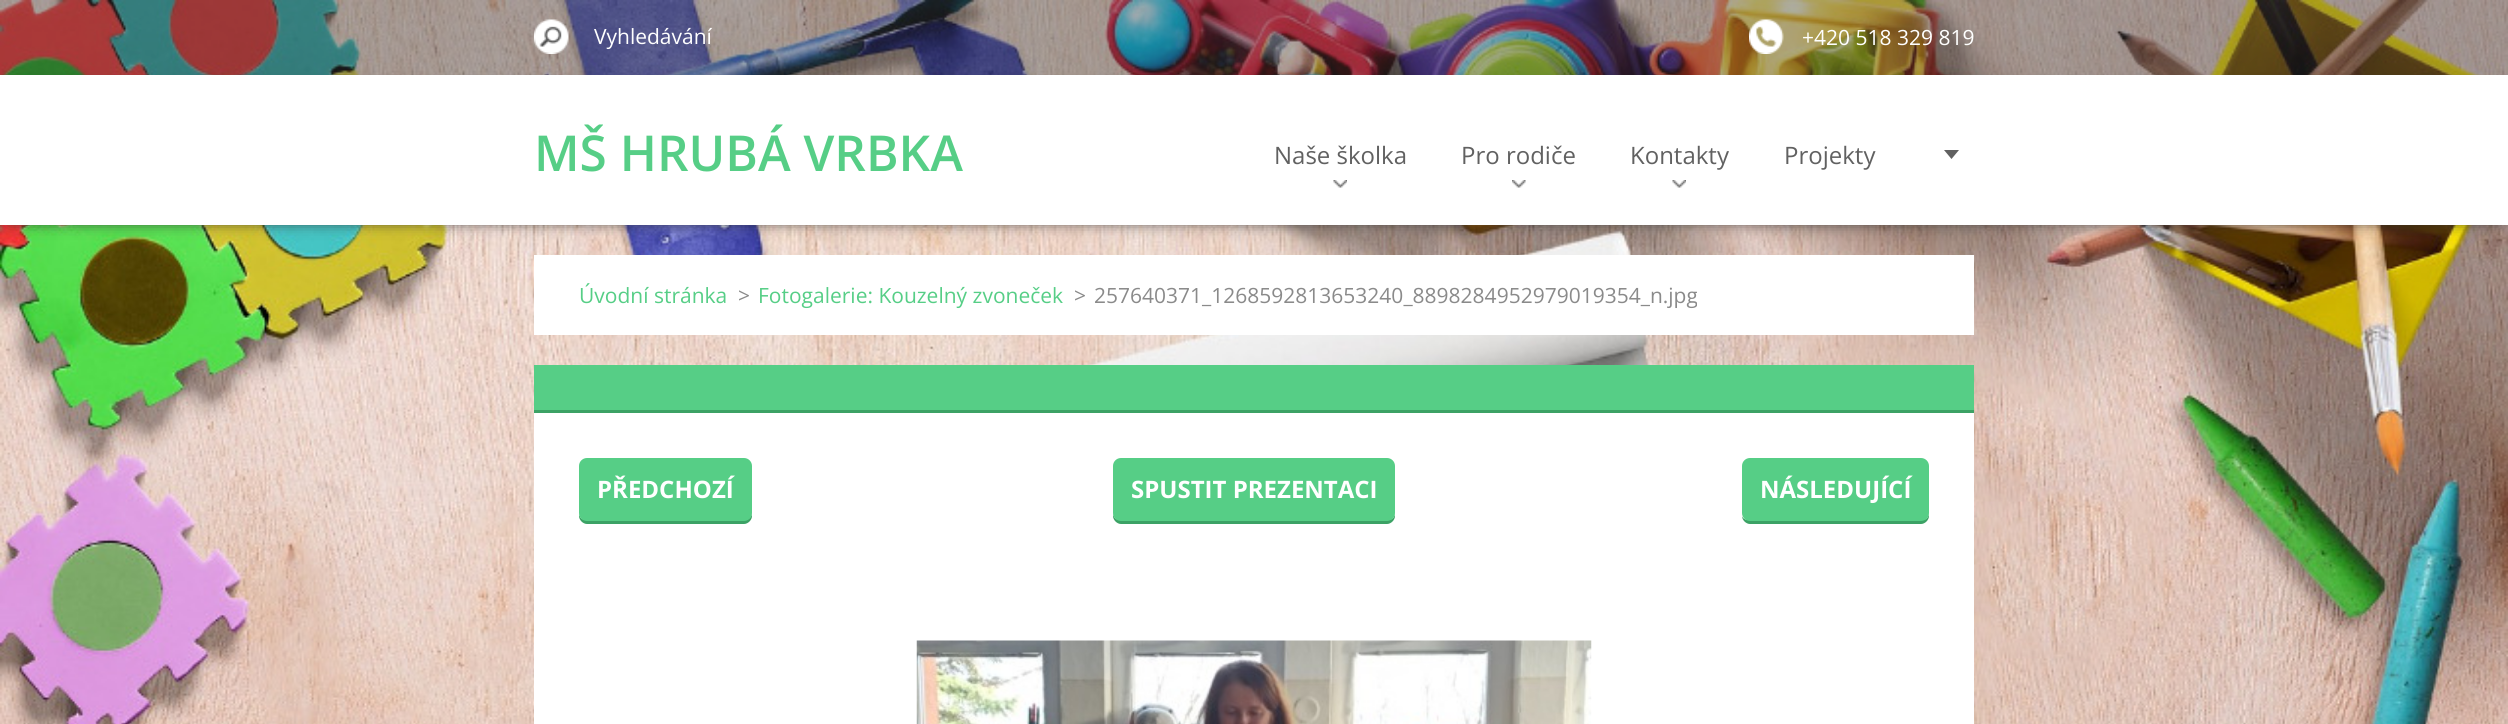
#include <cairo.h>
#include <math.h>
#include <stddef.h>

typedef struct { const char *family; double size; int italic, bold; unsigned color; } style_t;
static cairo_t *ctx;

static void ink(unsigned color) {
    cairo_set_source_rgb(ctx, (color >> 16) / 255.0, (color >> 8 & 255) / 255.0, (color & 255) / 255.0);
}

static void write(double x, double y, const char *s, const style_t *st) {
    cairo_select_font_face(ctx, st->family, st->italic ? CAIRO_FONT_SLANT_ITALIC : CAIRO_FONT_SLANT_NORMAL,
        st->bold ? CAIRO_FONT_WEIGHT_BOLD : CAIRO_FONT_WEIGHT_NORMAL);
    cairo_set_font_size(ctx, st->size);
    ink(st->color);
    cairo_move_to(ctx, x, y);
    cairo_show_text(ctx, s);
}

static void block(double x, double y, double w, double h, unsigned color) {
    ink(color);
    cairo_rectangle(ctx, x, y, w, h);
    cairo_fill(ctx);
}

static void round_path(double x, double y, double w, double h, double r) {
    cairo_new_sub_path(ctx);
    cairo_arc(ctx, x + w - r, y + h - r, r, 0, M_PI / 2);
    cairo_arc(ctx, x + r, y + h - r, r, M_PI / 2, M_PI);
    cairo_arc(ctx, x + r, y + r, r, M_PI, 1.5 * M_PI);
    cairo_arc(ctx, x + w - r, y + r, r, 1.5 * M_PI, 2 * M_PI);
    cairo_close_path(ctx);
}

static void blur_box(double x, double y, double w, double h, double r, double blur, double alpha) {
    cairo_push_group_with_content(ctx, CAIRO_CONTENT_ALPHA);
    cairo_set_operator(ctx, CAIRO_OPERATOR_SOURCE);
    for (int i = 15; i >= -15 && fmin(w, h) + blur * i / 3 > 0; i -= 2) {
        double e = blur * i / 6;
        cairo_set_source_rgba(ctx, 0, 0, 0, alpha * erfc((i - 1) / 8.5) / 2);
        round_path(x - e, y - e, w + 2 * e, h + 2 * e, fmax(0, fmin(r + e + blur * .6, fmin(w, h) / 2 + e)));
        cairo_fill(ctx);
    }
    cairo_pattern_t *soft = cairo_pop_group(ctx);
    cairo_mask(ctx, soft);
    cairo_pattern_destroy(soft);
}

static void paste(const char *path, double x, double y, double w, double h) {
    cairo_surface_t *image = cairo_image_surface_create_from_png(path);
    cairo_save(ctx);
    cairo_set_source_surface(ctx, image, x, y);
    cairo_rectangle(ctx, x, y, w, h);
    cairo_fill(ctx);
    cairo_restore(ctx);
    cairo_surface_destroy(image);
}

static const style_t s1 = {"Open Sans", 21, 0, 0, 0xffffff};
static const style_t s2 = {"Open Sans SemiBold", 49.5, 0, 0, 0x56ce86};
static const style_t s3 = {"Open Sans", 24, 0, 0, 0x616161};
static const style_t s4 = {"Open Sans", 21, 0, 0, 0x56ce86};
static const style_t s5 = {"Open Sans", 21, 0, 0, 0x8a8a8a};
static const style_t s6 = {"Open Sans", 24, 0, 1, 0xffffff};

int main(void) {
    cairo_surface_t *surface = cairo_image_surface_create(CAIRO_FORMAT_RGB24, 2508, 724);
    ctx = cairo_create(surface);
    cairo_font_options_t *options = cairo_font_options_create();
    cairo_font_options_set_hint_metrics(options, CAIRO_HINT_METRICS_OFF);
    cairo_font_options_set_hint_style(options, CAIRO_HINT_STYLE_NONE);
    cairo_set_font_options(ctx, options);
    cairo_set_miter_limit(ctx, 4);
    ink(0xffffff);
    cairo_paint(ctx);
    paste("pic1.png", 0, 0, 2508, 724);
    cairo_set_source_rgba(ctx, 0.208, 0.208, 0.208, 0.4);
    cairo_rectangle(ctx, 0, 0, 2508, 75);
    cairo_fill(ctx);
    paste("pic2.png", 534, 19, 35, 35);
    write(594, 44, "Vyhledávání", &s1);
    paste("pic3.png", 1749, 19, 35, 35);
    write(1802, 45, "+420 518 329 819", &s1);
    ink(0x353535);
    blur_box(9, 90, 2490, 132, 0, 7.5, 1);
    block(0, 75, 2508, 150, 0xffffff);
    write(534, 171, "MŠ HRUBÁ VRBKA", &s2);
    write(1274, 164, "Naše školka", &s3);
    paste("pic4.png", 1333, 180, 14, 8);
    write(1461, 164, "Pro rodiče", &s3);
    paste("pic5.png", 1512, 180, 14, 8);
    write(1630, 164, "Kontakty", &s3);
    paste("pic6.png", 1672, 180, 14, 8);
    write(1784, 164, "Projekty", &s3);
    cairo_new_path(ctx);
    cairo_move_to(ctx, 1944, 150);
    cairo_line_to(ctx, 1959, 150);
    cairo_line_to(ctx, 1951.5, 159);
    cairo_close_path(ctx);
    cairo_fill(ctx);
    block(534, 255, 1440, 80, 0xffffff);
    write(579, 303, "Úvodní stránka", &s4);
    write(738, 303, ">", &s5);
    write(758, 303, "Fotogalerie: Kouzelný zvoneček", &s4);
    write(1074, 303, ">", &s5);
    write(1094, 303, "257640371_1268592813653240_8898284952979019354_n.jpg", &s5);
    block(534, 413, 1440, 311, 0xffffff);
    block(534, 365, 1440, 45, 0x56ce86);
    block(534, 410, 1440, 3, 0x3ca265);
    cairo_new_path(ctx);
    cairo_move_to(ctx, 579, 513);
    cairo_line_to(ctx, 579, 516);
    cairo_curve_to(ctx, 579, 520, 583, 524, 587, 524);
    cairo_line_to(ctx, 744, 524);
    cairo_curve_to(ctx, 748, 524, 752, 520, 752, 516);
    cairo_line_to(ctx, 752, 469);
    cairo_line_to(ctx, 752, 466);
    cairo_line_to(ctx, 752, 513);
    cairo_curve_to(ctx, 752, 517, 748, 520, 744, 520);
    cairo_line_to(ctx, 586, 520);
    cairo_curve_to(ctx, 582, 520, 579, 517, 579, 513);
    cairo_close_path(ctx);
    cairo_fill(ctx);
    ink(0x56ce86);
    round_path(579, 458, 173, 63, 8);
    cairo_fill(ctx);
    write(597, 498, "PŘEDCHOZÍ", &s6);
    ink(0x3ca265);
    cairo_new_path(ctx);
    cairo_move_to(ctx, 1113, 513);
    cairo_line_to(ctx, 1113, 516);
    cairo_curve_to(ctx, 1113, 520, 1117, 524, 1121, 524);
    cairo_line_to(ctx, 1387, 524);
    cairo_curve_to(ctx, 1391, 524, 1395, 520, 1395, 516);
    cairo_line_to(ctx, 1395, 513);
    cairo_curve_to(ctx, 1395, 517, 1392, 520, 1388, 520);
    cairo_line_to(ctx, 1120, 520);
    cairo_curve_to(ctx, 1116, 520, 1113, 517, 1113, 513);
    cairo_close_path(ctx);
    cairo_fill(ctx);
    ink(0x56ce86);
    round_path(1113, 458, 282, 63, 8);
    cairo_fill(ctx);
    write(1131, 498, "SPUSTIT PREZENTACI", &s6);
    ink(0x3ca265);
    cairo_new_path(ctx);
    cairo_move_to(ctx, 1742, 516);
    cairo_curve_to(ctx, 1742, 520, 1746, 524, 1750, 524);
    cairo_line_to(ctx, 1921, 524);
    cairo_curve_to(ctx, 1925, 524, 1929, 520, 1929, 516);
    cairo_line_to(ctx, 1929, 513);
    cairo_curve_to(ctx, 1929, 517, 1926, 520, 1922, 520);
    cairo_line_to(ctx, 1749, 520);
    cairo_curve_to(ctx, 1746, 520, 1743, 519, 1742, 516);
    cairo_close_path(ctx);
    cairo_fill(ctx);
    ink(0x56ce86);
    round_path(1742, 458, 187, 63, 8);
    cairo_fill(ctx);
    write(1760, 498, "NÁSLEDUJÍCÍ", &s6);
    paste("pic7.png", 916, 640, 676, 84);
    cairo_surface_write_to_png(surface, "screenshot.png");
    cairo_font_options_destroy(options);
    cairo_destroy(ctx);
    cairo_surface_destroy(surface);
    return 0;
}
